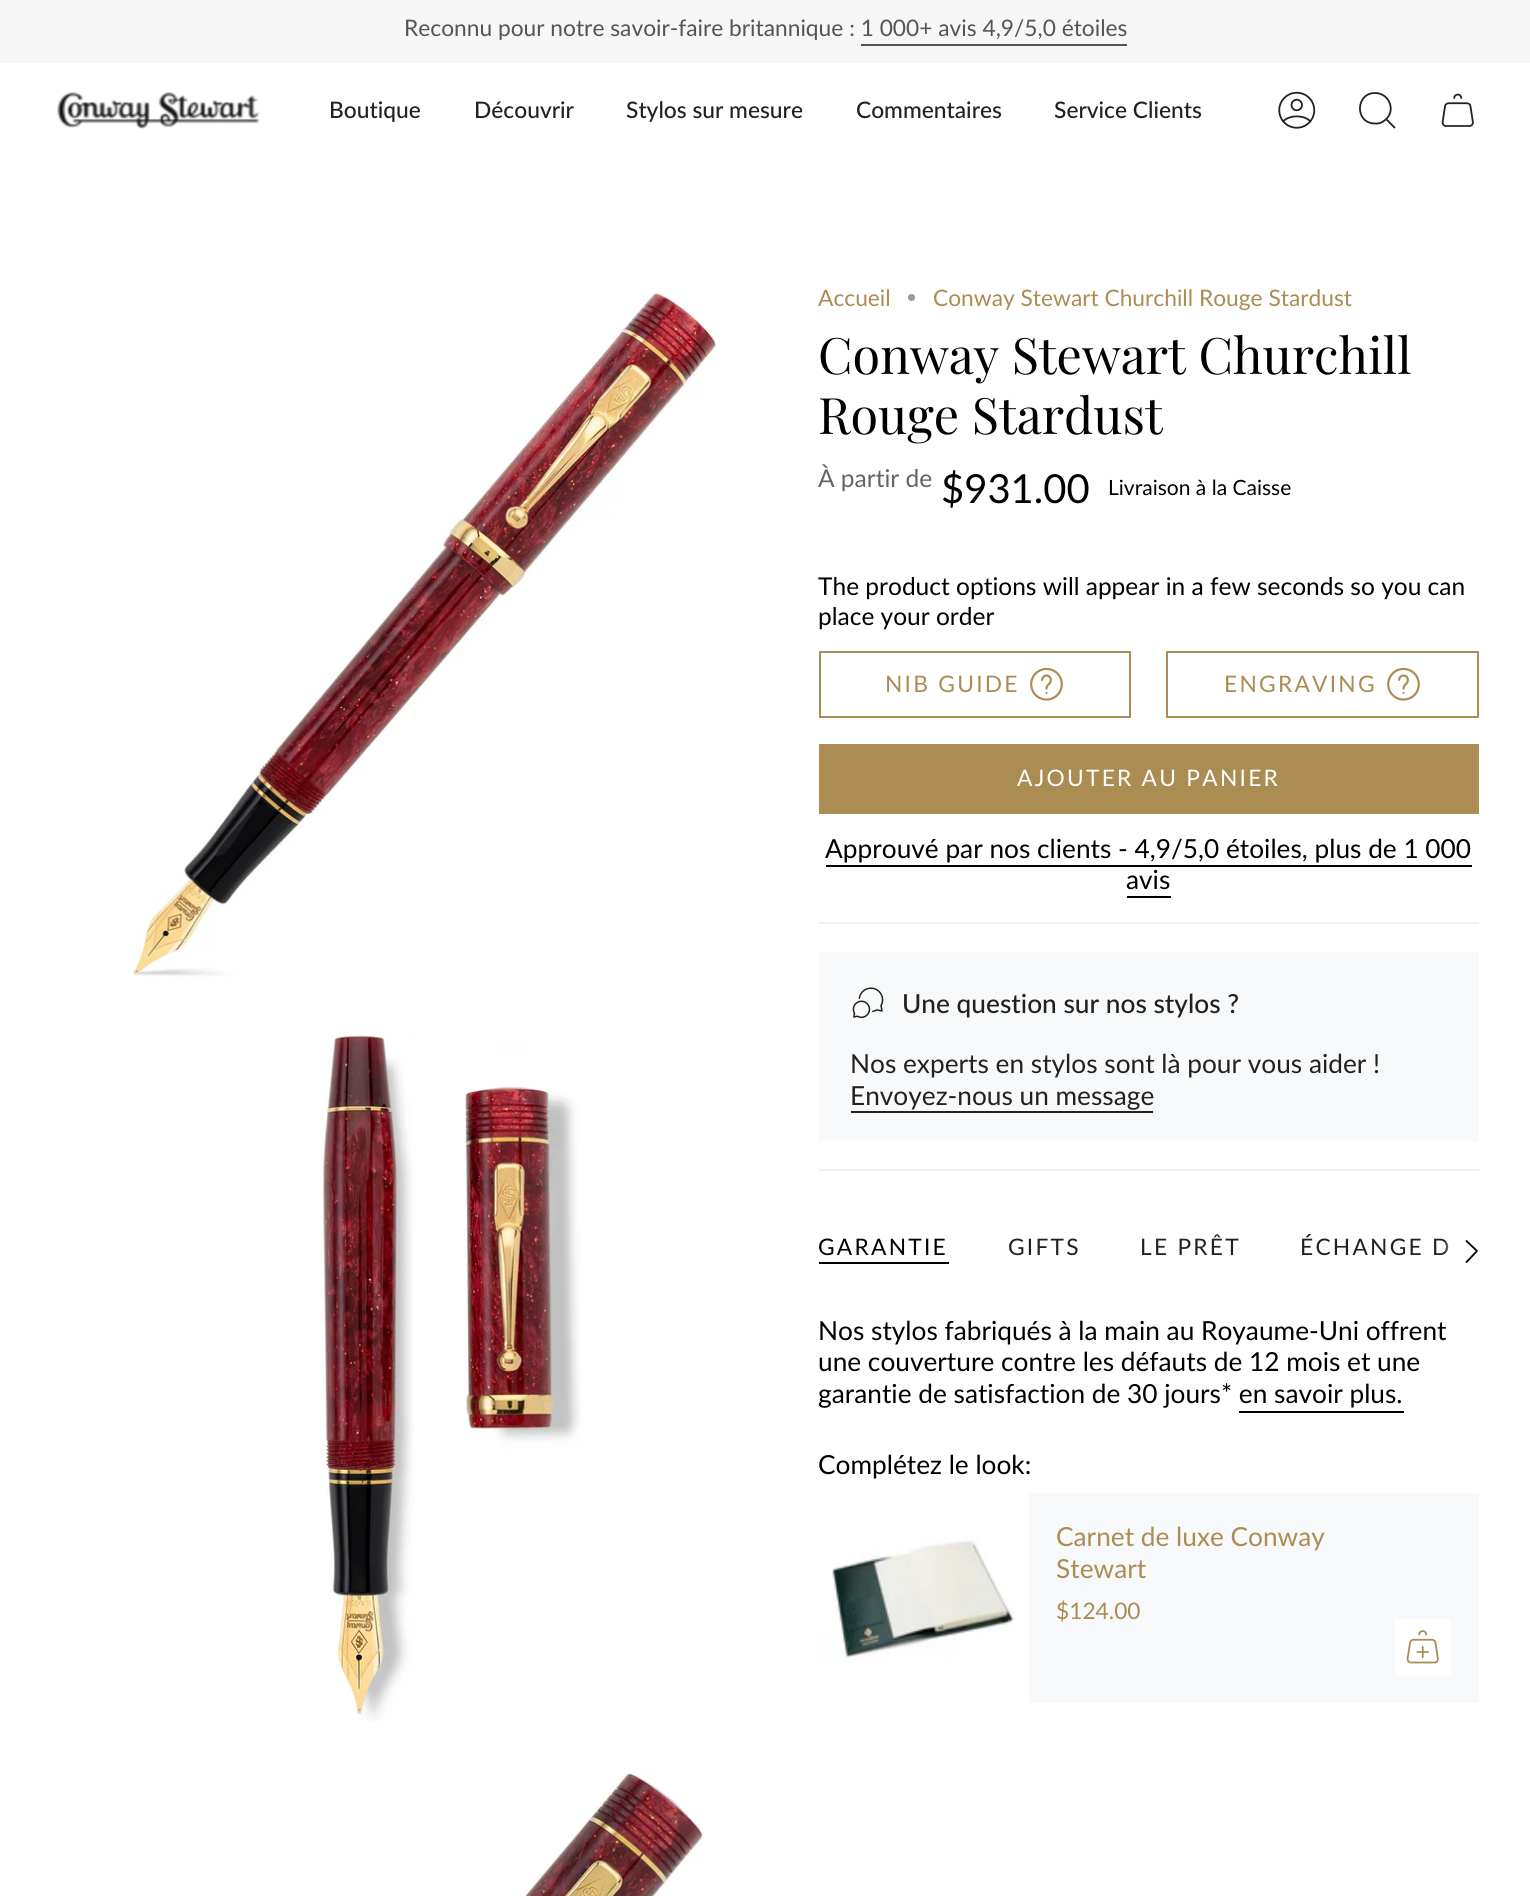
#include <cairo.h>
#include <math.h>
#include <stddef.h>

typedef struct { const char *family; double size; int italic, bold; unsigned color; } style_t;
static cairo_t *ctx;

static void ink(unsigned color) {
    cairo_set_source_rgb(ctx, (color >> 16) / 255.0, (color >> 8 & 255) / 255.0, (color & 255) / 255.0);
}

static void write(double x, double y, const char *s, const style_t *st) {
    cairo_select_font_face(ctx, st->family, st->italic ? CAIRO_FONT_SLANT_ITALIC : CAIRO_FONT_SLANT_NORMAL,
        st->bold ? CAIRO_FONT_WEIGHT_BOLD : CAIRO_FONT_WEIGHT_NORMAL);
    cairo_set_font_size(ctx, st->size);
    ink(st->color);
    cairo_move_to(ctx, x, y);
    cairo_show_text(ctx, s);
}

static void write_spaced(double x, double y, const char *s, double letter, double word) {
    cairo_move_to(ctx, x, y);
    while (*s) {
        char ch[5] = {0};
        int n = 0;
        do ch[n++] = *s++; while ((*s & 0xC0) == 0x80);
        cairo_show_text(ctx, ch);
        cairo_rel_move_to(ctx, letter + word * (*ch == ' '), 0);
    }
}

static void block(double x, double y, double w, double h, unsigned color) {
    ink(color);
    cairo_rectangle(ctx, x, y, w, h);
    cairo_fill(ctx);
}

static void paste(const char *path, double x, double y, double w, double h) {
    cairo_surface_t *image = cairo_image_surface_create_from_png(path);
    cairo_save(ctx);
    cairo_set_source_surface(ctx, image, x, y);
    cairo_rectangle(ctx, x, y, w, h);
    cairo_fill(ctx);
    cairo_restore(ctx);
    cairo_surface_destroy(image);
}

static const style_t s1 = {"Lato", 22.75, 0, 0, 0x545454};
static const style_t s2 = {"Lato Medium", 22.75, 0, 0, 0x212121};
static const style_t s3 = {"Lato", 22.75, 0, 0, 0xab8c52};
static const style_t s4 = {"Playfair Display", 50.25, 0, 0, 0x000000};
static const style_t s5 = {"Lato", 24.5, 0, 0, 0x646464};
static const style_t s6 = {"Lato", 40, 0, 0, 0x000000};
static const style_t s7 = {"Lato", 21, 0, 0, 0x000000};
static const style_t s8 = {"Lato", 24.5, 0, 0, 0x000000};
static const style_t s9 = {"Lato", 26.25, 0, 0, 0x000000};
static const style_t s10 = {"Lato Medium", 26.25, 0, 0, 0x212121};
static const style_t s11 = {"Lato", 26.25, 0, 0, 0x212121};
static const style_t s12 = {"Lato", 26.25, 0, 0, 0xab8c52};

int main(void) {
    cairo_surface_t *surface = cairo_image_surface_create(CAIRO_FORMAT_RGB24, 1530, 1896);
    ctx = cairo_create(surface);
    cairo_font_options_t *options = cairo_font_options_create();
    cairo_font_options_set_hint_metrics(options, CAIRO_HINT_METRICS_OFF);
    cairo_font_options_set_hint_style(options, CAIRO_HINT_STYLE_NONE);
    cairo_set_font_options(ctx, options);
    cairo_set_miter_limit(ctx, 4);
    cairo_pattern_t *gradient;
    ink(0xffffff);
    cairo_paint(ctx);
    block(0, 0, 1530, 63, 0xf7f7f7);
    write(404, 36, "Reconnu pour notre savoir-faire britannique : 1 000+ avis 4,9/5,0 étoiles", &s1);
    block(861, 44, 266, 2, 0x545454);
    paste("pic1.png", 57, 92, 203, 37);
    write(329, 118, "Boutique", &s2);
    write(474, 118, "Découvrir", &s2);
    write(626, 118, "Stylos sur mesure", &s2);
    write(856, 118, "Commentaires", &s2);
    write(1054, 118, "Service Clients", &s2);
    paste("pic2.png", 1278, 91, 38, 38);
    cairo_new_path(ctx);
    cairo_move_to(ctx, 1375, 93);
    cairo_curve_to(ctx, 1390, 93, 1396.5, 112, 1384.5, 120.5);
    cairo_curve_to(ctx, 1381.5, 123, 1378, 124, 1374.5, 123.5);
    cairo_curve_to(ctx, 1354.5, 123, 1355.5, 93, 1375, 93);
    cairo_close_path(ctx);
    cairo_move_to(ctx, 1386, 119);
    cairo_line_to(ctx, 1395, 128);
    cairo_set_line_width(ctx, 1.8);
    cairo_stroke(ctx);
    paste("pic3.png", 1441, 93, 33, 34);
    paste("pic4.png", 132, 291, 587, 686);
    paste("pic5.png", 322, 1034, 259, 687);
    paste("pic6.png", 525, 1773, 178, 123);
    write(818, 306, "Accueil", &s3);
    ink(0x999999);
    cairo_new_path(ctx);
    cairo_arc(ctx, 911.5, 297.5, 3.5, 0, 2 * M_PI);
    cairo_fill(ctx);
    write(933, 306, "Conway Stewart Churchill Rouge Stardust", &s3);
    write(818, 374, "Conway Stewart Churchill", &s4);
    write(818, 434, "Rouge Stardust", &s4);
    write(818, 487, "À partir de", &s5);
    write(941, 503, "$931.00", &s6);
    write(1108, 495, "Livraison à la Caisse", &s7);
    write(818, 595, "The product options will appear in a few seconds so you can", &s8);
    write(818, 625, "place your order", &s8);
    cairo_rectangle(ctx, 820, 652, 310, 65);
    ink(0xab8c52);
    cairo_set_line_width(ctx, 2);
    cairo_stroke(ctx);
    cairo_set_font_size(ctx, 22.75);
    write_spaced(885, 692, "NIB GUIDE", 2.25, 0);
    paste("pic7.png", 1030, 667, 33, 34);
    cairo_rectangle(ctx, 1167, 652, 311, 65);
    cairo_stroke(ctx);
    write_spaced(1224, 692, "ENGRAVING", 2.25, 0);
    paste("pic7.png", 1387, 667, 33, 34);
    block(819, 744, 660, 70, 0xab8c52);
    ink(0xffffff);
    write_spaced(1017, 786, "AJOUTER AU PANIER", 2.25, 0);
    cairo_new_path(ctx);
    cairo_arc(ctx, 1148, 779, 12, 0, 2 * M_PI);
    ink(0xab8c52);
    cairo_set_line_width(ctx, 1.8);
    cairo_stroke(ctx);
    write(825, 858, "Approuvé par nos clients - 4,9/5,0 étoiles, plus de 1 000", &s9);
    write(1126, 889, "avis", &s9);
    block(826, 865, 646, 2, 0x000000);
    block(1127, 896, 44, 2, 0x000000);
    block(819, 922, 660, 2, 0xf0f0f0);
    block(819, 952, 660, 189, 0xf7f9fa);
    paste("pic8.png", 852, 987, 32, 32);
    write(902, 1013, "Une question sur nos stylos ?", &s10);
    write(850, 1073, "Nos experts en stylos sont là pour vous aider !", &s11);
    write(850, 1105, "Envoyez-nous un message", &s11);
    block(851, 1111, 302, 2, 0x212121);
    block(819, 1169, 660, 2, 0xf0f0f0);
    cairo_set_font_size(ctx, 22.75);
    ink(0x000000);
    write_spaced(818, 1255, "GARANTIE", 2.25, 0);
    block(819, 1262, 130, 2, 0x000000);
    ink(0x212121);
    write_spaced(1008, 1255, "GIFTS", 2.25, 0);
    write_spaced(1140, 1255, "LE PRÊT", 2.25, 0);
    write_spaced(1300, 1255, "ÉCHANGE D", 2.25, 0);
    gradient = cairo_pattern_create_linear(1500, 1252, 1444, 1252);
    cairo_pattern_add_color_stop_rgba(gradient, 0.78, 1, 1, 1, 1);
    cairo_pattern_add_color_stop_rgba(gradient, 1, 1, 1, 1, 0);
    cairo_set_source(ctx, gradient);
    cairo_pattern_destroy(gradient);
    cairo_rectangle(ctx, 1444, 1239, 5, 15);
    cairo_fill(ctx);
    cairo_new_path(ctx);
    cairo_move_to(ctx, 1466.5, 1241);
    cairo_line_to(ctx, 1477, 1251);
    cairo_line_to(ctx, 1466.5, 1262);
    ink(0x000000);
    cairo_set_line_cap(ctx, CAIRO_LINE_CAP_ROUND);
    cairo_set_line_join(ctx, CAIRO_LINE_JOIN_ROUND);
    cairo_stroke(ctx);
    write(818, 1340, "Nos stylos fabriqués à la main au Royaume-Uni offrent", &s9);
    write(818, 1371, "une couverture contre les défauts de 12 mois et une", &s9);
    write(818, 1403, "garantie de satisfaction de 30 jours* en savoir plus.", &s9);
    block(1239, 1411, 165, 2, 0x000000);
    write(818, 1474, "Complétez le look:", &s9);
    block(819, 1493, 660, 210, 0xf7f9fa);
    paste("pic9.png", 819, 1493, 210, 210);
    write(1056, 1546, "Carnet de luxe Conway", &s12);
    write(1056, 1578, "Stewart", &s12);
    write(1056, 1619, "$124.00", &s3);
    block(1395, 1619, 56, 56, 0xffffff);
    paste("pic10.png", 1406, 1630, 33, 34);
    cairo_surface_write_to_png(surface, "screenshot.png");
    cairo_font_options_destroy(options);
    cairo_destroy(ctx);
    cairo_surface_destroy(surface);
    return 0;
}
